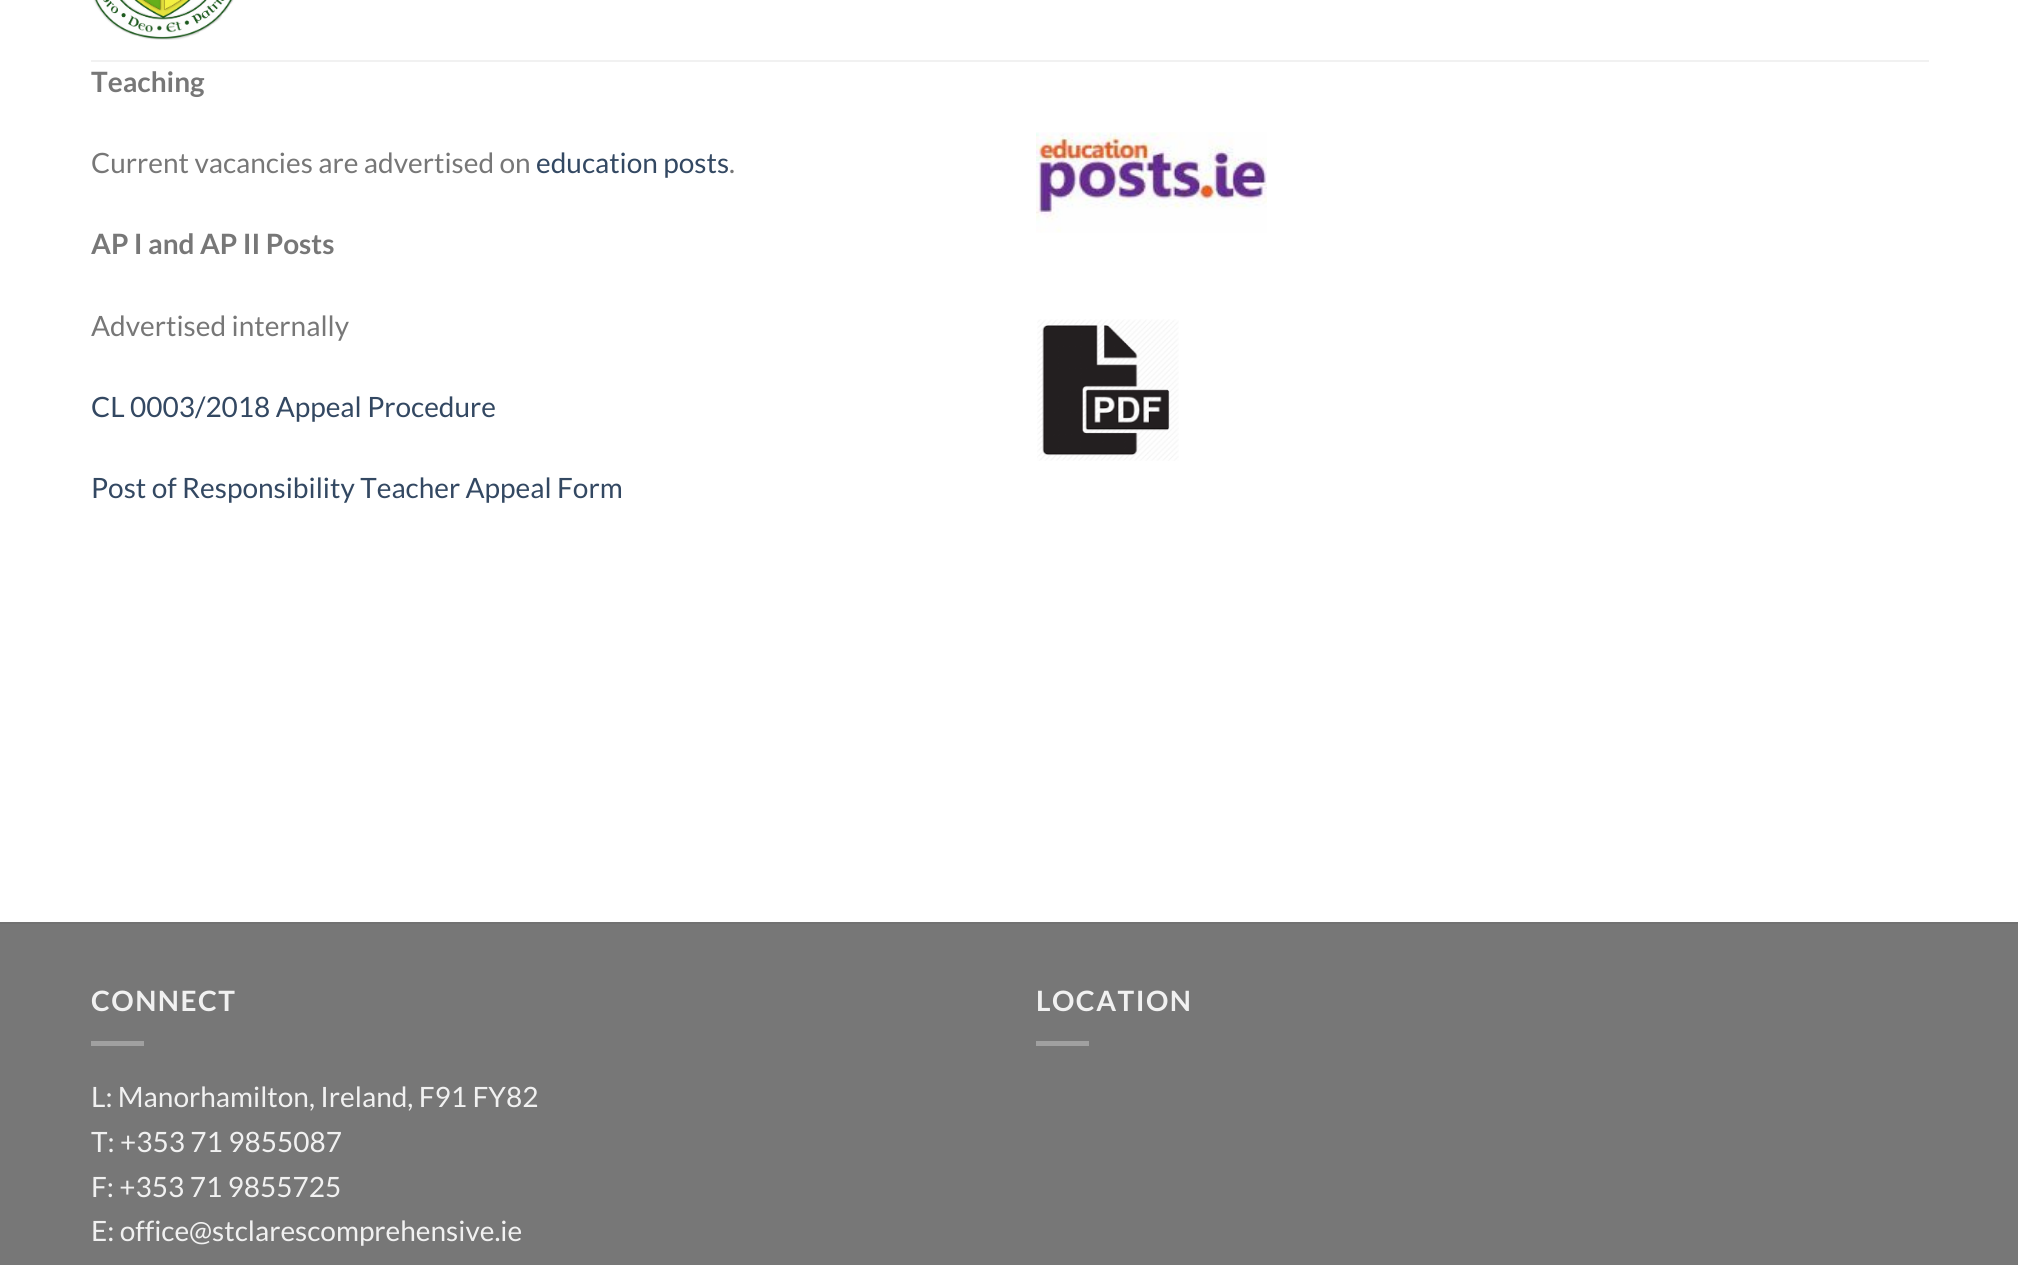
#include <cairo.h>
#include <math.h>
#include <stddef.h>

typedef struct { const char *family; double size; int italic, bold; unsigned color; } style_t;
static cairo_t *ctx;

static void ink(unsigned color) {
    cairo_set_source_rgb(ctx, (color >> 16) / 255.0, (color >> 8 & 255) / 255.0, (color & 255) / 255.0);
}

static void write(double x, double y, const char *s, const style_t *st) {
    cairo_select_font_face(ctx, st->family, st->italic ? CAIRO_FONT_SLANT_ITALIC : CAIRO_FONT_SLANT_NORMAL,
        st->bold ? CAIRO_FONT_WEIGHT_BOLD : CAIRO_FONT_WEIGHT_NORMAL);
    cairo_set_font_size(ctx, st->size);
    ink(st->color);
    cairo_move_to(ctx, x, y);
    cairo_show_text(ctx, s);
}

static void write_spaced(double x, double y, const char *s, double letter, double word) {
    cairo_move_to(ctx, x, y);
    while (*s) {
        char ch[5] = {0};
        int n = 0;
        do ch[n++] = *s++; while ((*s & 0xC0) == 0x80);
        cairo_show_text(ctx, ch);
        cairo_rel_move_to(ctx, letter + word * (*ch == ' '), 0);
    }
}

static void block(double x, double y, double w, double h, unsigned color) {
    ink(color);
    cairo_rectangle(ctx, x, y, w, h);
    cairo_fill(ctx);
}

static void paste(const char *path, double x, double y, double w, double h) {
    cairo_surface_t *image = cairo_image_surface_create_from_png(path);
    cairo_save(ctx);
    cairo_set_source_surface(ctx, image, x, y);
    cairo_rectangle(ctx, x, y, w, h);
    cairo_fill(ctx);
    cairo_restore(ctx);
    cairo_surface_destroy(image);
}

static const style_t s1 = {"Lato", 28, 0, 1, 0x777777};
static const style_t s2 = {"Lato", 28, 0, 0, 0x777777};
static const style_t s3 = {"Lato", 28, 0, 0, 0x334862};
static const style_t s4 = {"Lato", 28, 0, 0, 0xf1f1f1};

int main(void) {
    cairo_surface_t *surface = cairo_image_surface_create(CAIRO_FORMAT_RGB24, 2018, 1265);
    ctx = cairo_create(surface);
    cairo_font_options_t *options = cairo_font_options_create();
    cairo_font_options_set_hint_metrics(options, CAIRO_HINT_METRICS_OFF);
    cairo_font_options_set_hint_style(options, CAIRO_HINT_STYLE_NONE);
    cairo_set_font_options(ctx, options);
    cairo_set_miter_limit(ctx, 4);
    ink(0xffffff);
    cairo_paint(ctx);
    paste("pic1.png", 93, 0, 141, 40);
    block(91, 60, 1838, 2, 0xf1f1f1);
    write(91, 92, "Teaching", &s1);
    write(91, 173, "Current vacancies are advertised on", &s2);
    write(536, 173, "education posts", &s3);
    write(729, 173, ".", &s2);
    write(91, 254, "AP I and AP II Posts", &s1);
    write(91, 336, "Advertised internally", &s2);
    write(91, 417, "CL 0003/2018 Appeal Procedure", &s3);
    write(91, 498, "Post of Responsibility Teacher Appeal Form", &s3);
    paste("pic2.png", 1036, 132, 231, 101);
    paste("pic3.png", 1037, 319, 142, 142);
    block(0, 924, 2018, 341, 0x777777);
    block(0, 922, 2018, 2, 0x717171);
    cairo_select_font_face(ctx, "Lato", CAIRO_FONT_SLANT_NORMAL, CAIRO_FONT_WEIGHT_BOLD);
    ink(0xf1f1f1);
    write_spaced(91, 1011, "CONNECT", 1.5, 0);
    block(91, 1041, 53, 5, 0xa0a0a0);
    write(91, 1107, "L: Manorhamilton, Ireland, F91 FY82", &s4);
    write(91, 1152, "T: +353 71 9855087", &s4);
    write(91, 1197, "F: +353 71 9855725", &s4);
    write(91, 1241, "E: office@stclarescomprehensive.ie", &s4);
    cairo_select_font_face(ctx, "Lato", CAIRO_FONT_SLANT_NORMAL, CAIRO_FONT_WEIGHT_BOLD);
    write_spaced(1036, 1011, "LOCATION", 1.5, 0);
    block(1036, 1041, 53, 5, 0xa0a0a0);
    cairo_surface_write_to_png(surface, "screenshot.png");
    cairo_font_options_destroy(options);
    cairo_destroy(ctx);
    cairo_surface_destroy(surface);
    return 0;
}
